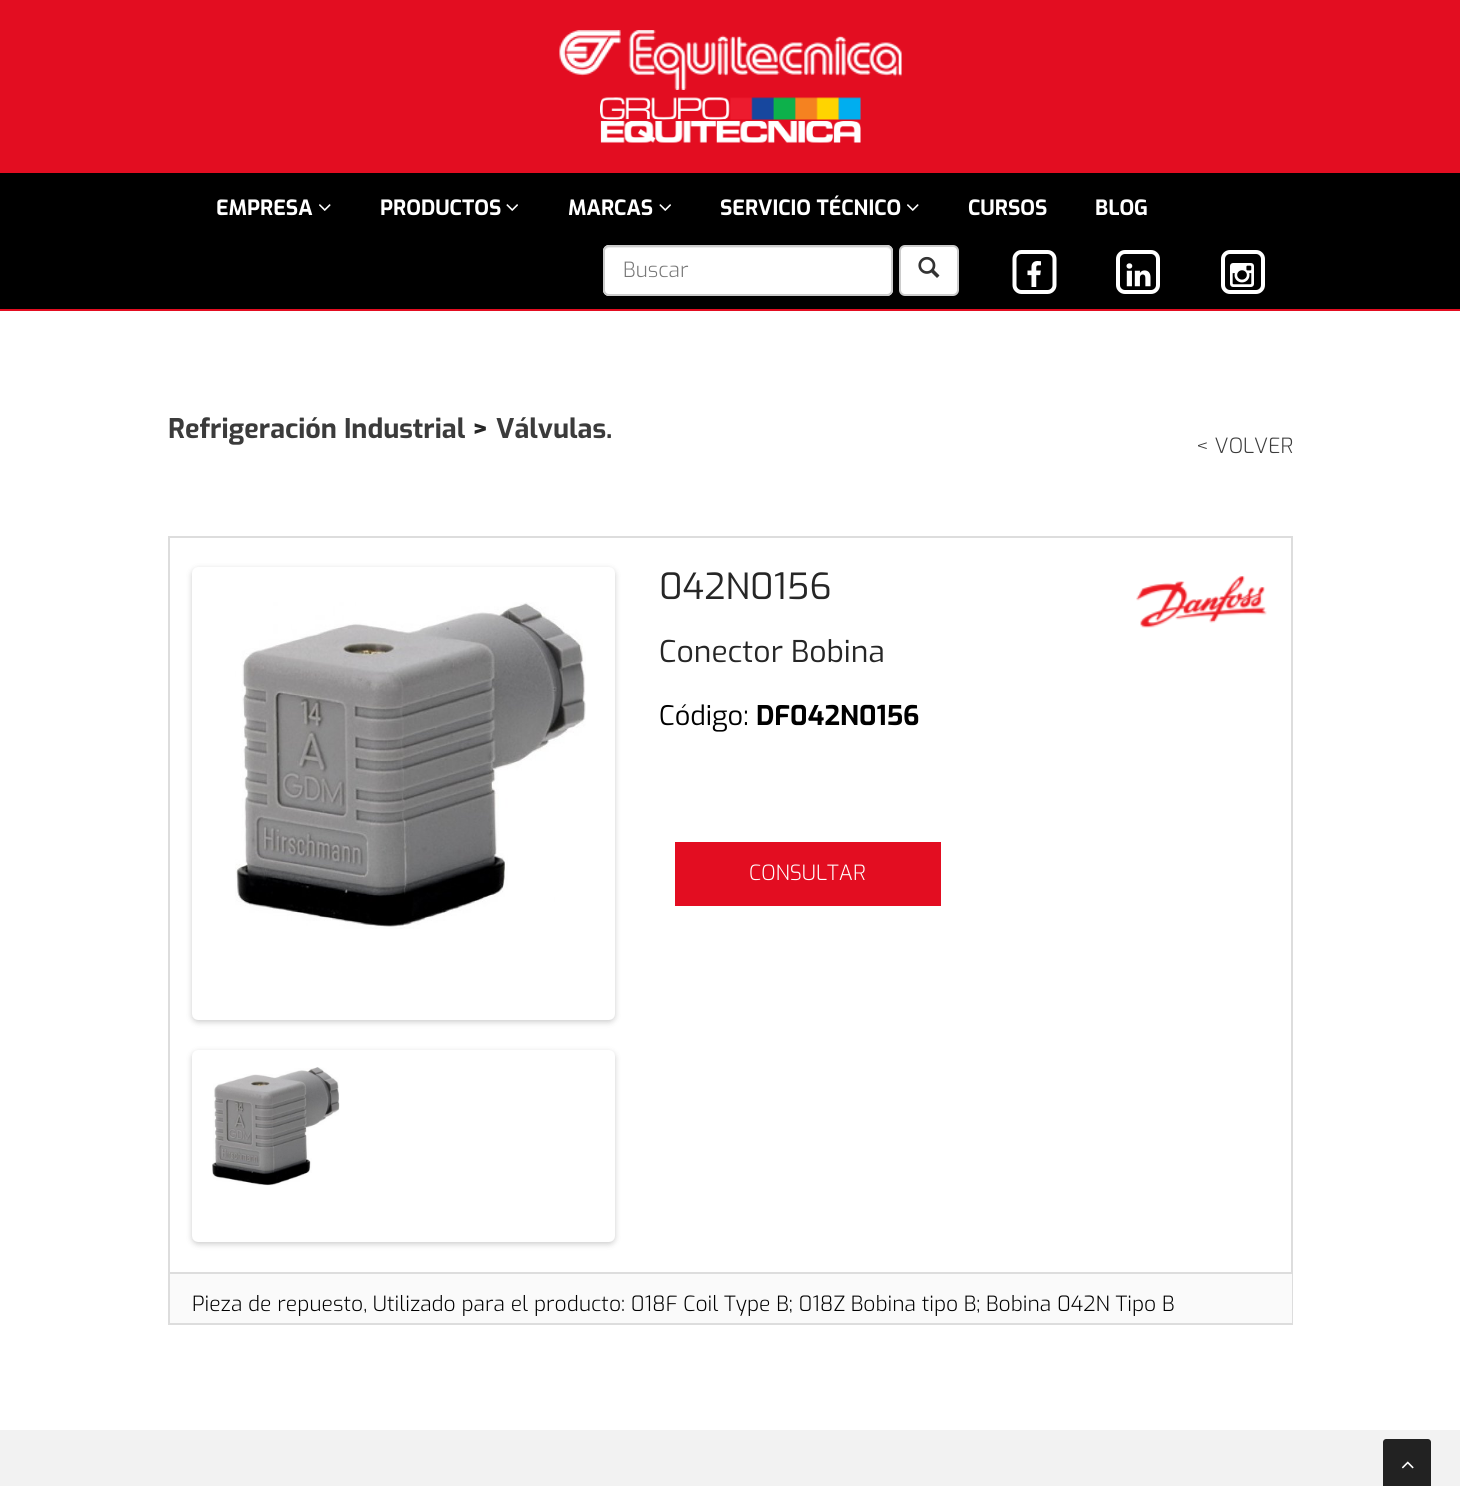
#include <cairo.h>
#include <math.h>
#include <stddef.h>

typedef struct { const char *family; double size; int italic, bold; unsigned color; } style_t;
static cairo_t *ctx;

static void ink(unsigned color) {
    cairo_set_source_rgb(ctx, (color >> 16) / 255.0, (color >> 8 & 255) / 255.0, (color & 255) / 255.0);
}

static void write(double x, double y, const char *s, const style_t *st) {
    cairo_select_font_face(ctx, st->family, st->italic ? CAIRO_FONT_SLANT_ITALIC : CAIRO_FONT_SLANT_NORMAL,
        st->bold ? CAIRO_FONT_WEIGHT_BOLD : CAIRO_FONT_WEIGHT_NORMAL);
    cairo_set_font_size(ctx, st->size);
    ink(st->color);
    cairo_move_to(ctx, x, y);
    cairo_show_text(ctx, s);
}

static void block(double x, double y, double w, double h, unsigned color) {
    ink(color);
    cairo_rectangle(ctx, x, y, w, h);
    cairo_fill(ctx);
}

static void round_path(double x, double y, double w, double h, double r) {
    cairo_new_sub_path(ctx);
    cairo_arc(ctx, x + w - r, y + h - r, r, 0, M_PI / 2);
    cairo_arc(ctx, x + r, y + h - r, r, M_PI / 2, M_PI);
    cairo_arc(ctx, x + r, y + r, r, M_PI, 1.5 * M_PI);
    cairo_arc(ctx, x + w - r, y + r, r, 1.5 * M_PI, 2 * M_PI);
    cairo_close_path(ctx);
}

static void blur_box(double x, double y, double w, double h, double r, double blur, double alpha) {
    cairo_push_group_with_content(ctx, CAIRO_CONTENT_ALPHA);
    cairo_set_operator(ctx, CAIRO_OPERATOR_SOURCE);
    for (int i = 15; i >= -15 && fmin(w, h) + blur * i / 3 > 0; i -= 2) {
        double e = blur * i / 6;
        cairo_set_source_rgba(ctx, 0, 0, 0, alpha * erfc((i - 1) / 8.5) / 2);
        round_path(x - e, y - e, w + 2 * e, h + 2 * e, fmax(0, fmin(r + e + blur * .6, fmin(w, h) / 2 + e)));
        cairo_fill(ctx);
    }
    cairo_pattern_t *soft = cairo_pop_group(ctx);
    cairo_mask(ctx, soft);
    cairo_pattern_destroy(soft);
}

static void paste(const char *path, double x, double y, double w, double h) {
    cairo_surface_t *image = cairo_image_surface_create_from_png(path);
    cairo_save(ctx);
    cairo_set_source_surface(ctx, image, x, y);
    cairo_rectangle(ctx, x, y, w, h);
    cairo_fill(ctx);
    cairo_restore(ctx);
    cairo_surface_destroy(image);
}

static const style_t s1 = {"Exo", 21, 0, 1, 0xffffff};
static const style_t s2 = {"Exo Light", 21, 0, 0, 0x777777};
static const style_t s3 = {"Exo", 27, 0, 1, 0x3b3b3b};
static const style_t s4 = {"Exo", 27, 0, 1, 0x262626};
static const style_t s5 = {"Exo Light", 21, 0, 0, 0x3b3b3b};
static const style_t s6 = {"Exo", 36, 0, 0, 0x262626};
static const style_t s7 = {"Exo", 30, 0, 0, 0x262626};
static const style_t s8 = {"Exo", 27, 0, 0, 0x000000};
static const style_t s9 = {"Exo", 27, 0, 1, 0x000000};
static const style_t s10 = {"Exo Light", 21, 0, 0, 0xffffff};
static const style_t s11 = {"Exo Light", 21, 0, 0, 0x000000};

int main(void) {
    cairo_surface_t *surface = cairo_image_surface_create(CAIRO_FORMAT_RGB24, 1460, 1486);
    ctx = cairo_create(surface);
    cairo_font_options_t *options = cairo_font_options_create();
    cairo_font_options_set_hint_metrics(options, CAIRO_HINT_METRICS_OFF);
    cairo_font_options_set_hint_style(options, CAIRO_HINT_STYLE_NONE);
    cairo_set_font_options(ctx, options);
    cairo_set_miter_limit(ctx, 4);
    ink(0xffffff);
    cairo_paint(ctx);
    block(0, 0, 1460, 173, 0xe30d21);
    block(0, 173, 1460, 136, 0x000000);
    paste("pic1.png", 559, 30, 343, 60);
    paste("pic2.png", 600, 97, 261, 46);
    block(0, 309, 1460, 2, 0xe30d21);
    write(216, 215, "EMPRESA", &s1);
    paste("pic3.png", 319, 204, 12, 7);
    write(380, 215, "PRODUCTOS", &s1);
    paste("pic4.png", 506, 204, 12, 7);
    write(568, 215, "MARCAS", &s1);
    paste("pic4.png", 659, 204, 12, 7);
    write(720, 215, "SERVICIO TÉCNICO", &s1);
    paste("pic3.png", 907, 204, 12, 7);
    write(968, 215, "CURSOS", &s1);
    write(1095, 215, "BLOG", &s1);
    round_path(603, 245, 290, 51, 6);
    cairo_fill(ctx);
    ink(0xececec);
    cairo_new_path(ctx);
    cairo_move_to(ctx, 609, 248);
    cairo_line_to(ctx, 886, 248);
    cairo_curve_to(ctx, 889, 248, 891, 250, 891, 252);
    cairo_line_to(ctx, 891, 251);
    cairo_curve_to(ctx, 891, 248, 889, 246, 886, 246);
    cairo_line_to(ctx, 610, 246);
    cairo_curve_to(ctx, 608, 246, 606, 248, 605, 250);
    cairo_curve_to(ctx, 606, 249, 608, 248, 609, 248);
    cairo_close_path(ctx);
    cairo_fill(ctx);
    round_path(604, 246, 288, 49, 5);
    ink(0xcccccc);
    cairo_stroke(ctx);
    write(623, 277, "Buscar", &s2);
    ink(0xffffff);
    round_path(900, 246, 58, 49, 5);
    cairo_fill_preserve(ctx);
    ink(0xcccccc);
    cairo_stroke(ctx);
    paste("pic5.png", 918, 256, 22, 22);
    paste("pic6.png", 1012, 250, 45, 44);
    paste("pic7.png", 1027, 261, 14, 26);
    paste("pic8.png", 1116, 250, 44, 44);
    paste("pic9.png", 1126, 263, 25, 24);
    paste("pic8.png", 1221, 250, 44, 44);
    paste("pic10.png", 1230, 263, 24, 24);
    write(168, 438, "Refrigeración Industrial", &s3);
    write(472, 438, ">", &s4);
    write(496, 438, "Válvulas.", &s3);
    write(1196, 453, "< VOLVER", &s5);
    cairo_rectangle(ctx, 169, 537, 1123, 787);
    ink(0xdddddd);
    cairo_stroke(ctx);
    ink(0x000000);
    blur_box(192, 569, 423, 453, 6, 3, 0.2);
    ink(0xffffff);
    round_path(195, 570, 417, 447, 3);
    cairo_fill_preserve(ctx);
    cairo_set_line_width(ctx, 6);
    cairo_stroke(ctx);
    paste("pic11.png", 235, 602, 351, 327);
    ink(0x000000);
    blur_box(192, 1052, 423, 192, 6, 3, 0.2);
    ink(0xffffff);
    round_path(195, 1053, 417, 186, 3);
    cairo_fill_preserve(ctx);
    cairo_stroke(ctx);
    paste("pic12.png", 212, 1067, 128, 119);
    write(659, 599, "042N0156", &s6);
    paste("pic13.png", 1136, 576, 131, 52);
    write(659, 662, "Conector Bobina", &s7);
    write(659, 725, "Código:", &s8);
    write(756, 725, "DF042N0156", &s9);
    block(675, 842, 266, 64, 0xe30d21);
    write(749, 880, "CONSULTAR", &s10);
    block(170, 1274, 1122, 49, 0xfafafa);
    block(170, 1272, 1122, 2, 0xdddddd);
    write(192, 1311, "Pieza de repuesto, Utilizado para el producto: 018F Coil Type B; 018Z Bobina tipo B; Bobina 042N Tipo B", &s11);
    block(0, 1430, 1460, 56, 0xf2f2f2);
    ink(0x222222);
    cairo_new_path(ctx);
    cairo_move_to(ctx, 1386, 1439);
    cairo_line_to(ctx, 1428, 1439);
    cairo_curve_to(ctx, 1429.5, 1439, 1431, 1440.5, 1431, 1442);
    cairo_line_to(ctx, 1431, 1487);
    cairo_line_to(ctx, 1383, 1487);
    cairo_line_to(ctx, 1383, 1442);
    cairo_curve_to(ctx, 1383, 1440.5, 1384.5, 1439, 1386, 1439);
    cairo_close_path(ctx);
    cairo_fill(ctx);
    paste("pic14.png", 1401, 1461, 13, 8);
    cairo_surface_write_to_png(surface, "screenshot.png");
    cairo_font_options_destroy(options);
    cairo_destroy(ctx);
    cairo_surface_destroy(surface);
    return 0;
}
